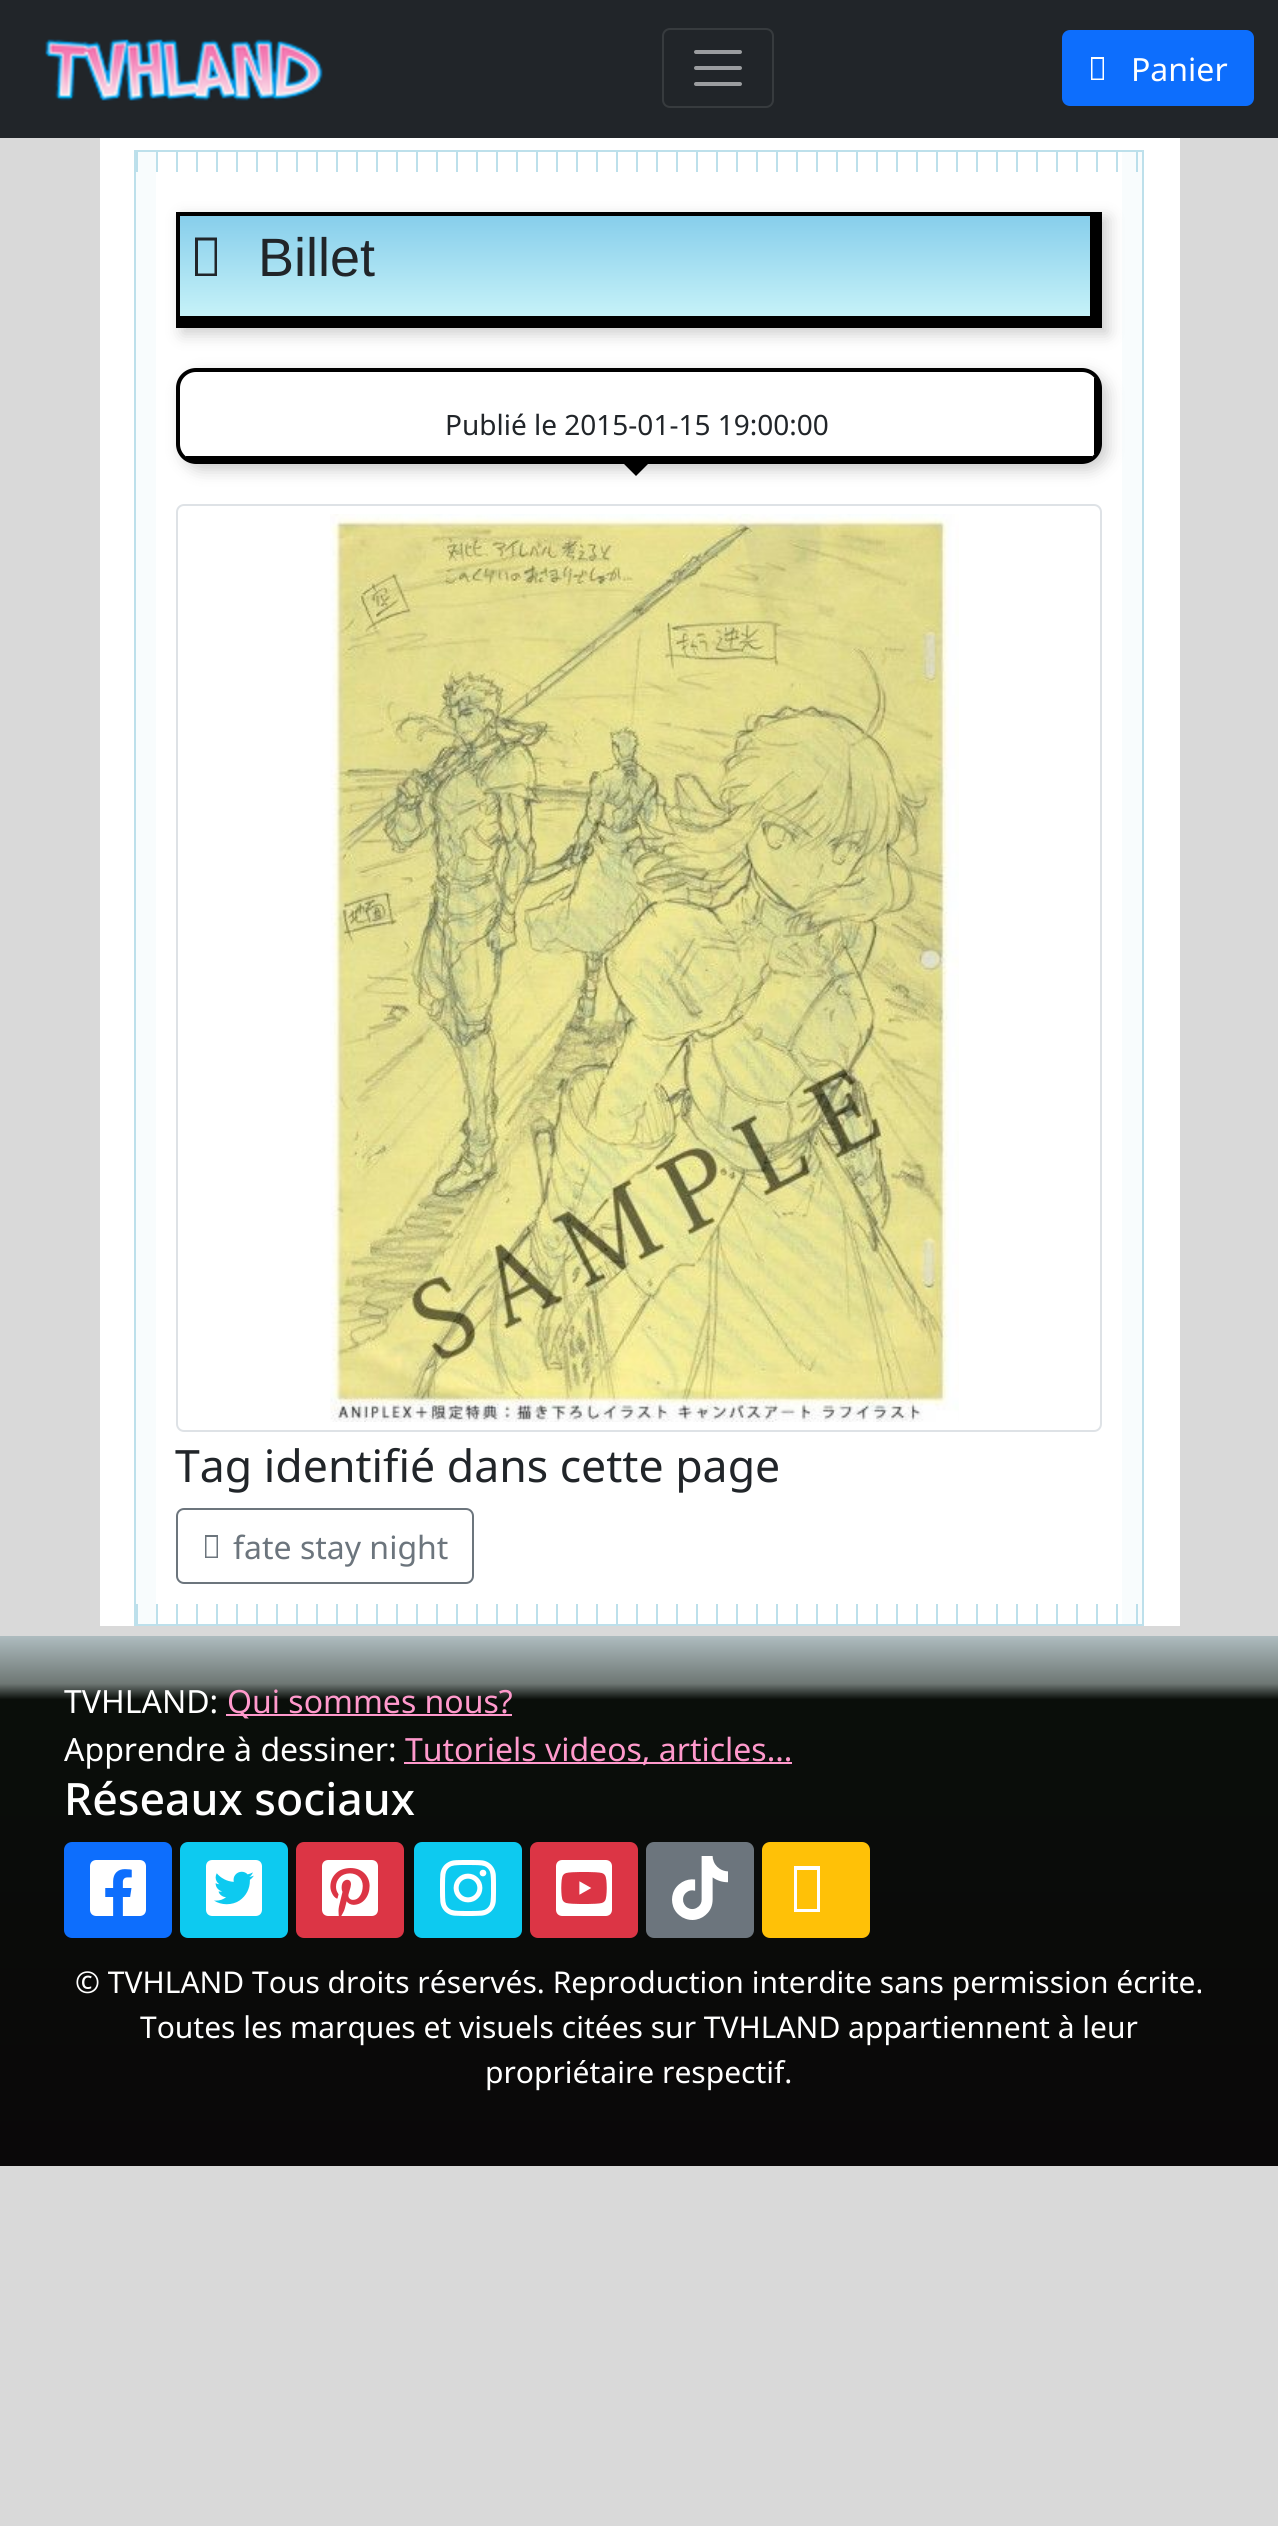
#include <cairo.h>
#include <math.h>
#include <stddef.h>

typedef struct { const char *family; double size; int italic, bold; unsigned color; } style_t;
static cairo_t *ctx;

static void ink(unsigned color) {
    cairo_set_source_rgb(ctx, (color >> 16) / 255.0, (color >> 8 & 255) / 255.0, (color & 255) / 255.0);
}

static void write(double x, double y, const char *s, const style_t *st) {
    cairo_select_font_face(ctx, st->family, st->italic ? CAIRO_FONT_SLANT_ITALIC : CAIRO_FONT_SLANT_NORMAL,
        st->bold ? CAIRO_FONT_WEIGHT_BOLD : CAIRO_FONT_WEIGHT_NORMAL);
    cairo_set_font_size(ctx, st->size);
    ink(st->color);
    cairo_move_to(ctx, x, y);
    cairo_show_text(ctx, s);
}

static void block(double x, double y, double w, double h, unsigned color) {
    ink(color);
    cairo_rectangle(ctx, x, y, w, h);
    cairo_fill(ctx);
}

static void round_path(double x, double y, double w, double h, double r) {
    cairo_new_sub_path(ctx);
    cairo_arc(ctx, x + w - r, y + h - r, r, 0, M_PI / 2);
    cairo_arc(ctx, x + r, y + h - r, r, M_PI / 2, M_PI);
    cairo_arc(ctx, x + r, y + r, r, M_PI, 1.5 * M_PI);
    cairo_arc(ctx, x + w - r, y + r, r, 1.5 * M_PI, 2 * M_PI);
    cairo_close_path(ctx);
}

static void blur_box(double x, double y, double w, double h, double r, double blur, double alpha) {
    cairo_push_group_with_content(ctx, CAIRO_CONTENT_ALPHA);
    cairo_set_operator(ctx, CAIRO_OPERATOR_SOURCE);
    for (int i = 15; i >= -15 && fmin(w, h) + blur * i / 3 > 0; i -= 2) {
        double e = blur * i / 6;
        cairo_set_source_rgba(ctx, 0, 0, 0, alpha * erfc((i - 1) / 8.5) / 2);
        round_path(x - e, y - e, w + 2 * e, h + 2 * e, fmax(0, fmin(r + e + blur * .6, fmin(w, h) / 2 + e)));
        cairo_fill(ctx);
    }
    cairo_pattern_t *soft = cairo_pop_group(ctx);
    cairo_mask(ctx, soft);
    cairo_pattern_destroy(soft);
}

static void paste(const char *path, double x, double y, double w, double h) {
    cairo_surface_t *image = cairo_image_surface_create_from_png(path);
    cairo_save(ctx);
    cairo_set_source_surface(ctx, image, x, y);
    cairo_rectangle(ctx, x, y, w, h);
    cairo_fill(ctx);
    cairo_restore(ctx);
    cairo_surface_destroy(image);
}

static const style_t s1 = {"Noto Sans", 32, 0, 0, 0xffffff};
static const style_t s2 = {"Liberation Sans", 54, 0, 0, 0x212529};
static const style_t s3 = {"Noto Sans", 28, 0, 0, 0x212529};
static const style_t s4 = {"Noto Sans", 44.6, 0, 0, 0x212529};
static const style_t s5 = {"Noto Sans", 32, 0, 0, 0x6c757d};
static const style_t s6 = {"Noto Sans", 32, 0, 0, 0xff99cc};
static const style_t s7 = {"Noto Sans Medium", 44.6, 0, 0, 0xffffff};
static const style_t s8 = {"Noto Sans", 30, 0, 0, 0xffffff};

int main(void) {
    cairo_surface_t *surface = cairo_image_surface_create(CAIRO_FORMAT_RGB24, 1278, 2526);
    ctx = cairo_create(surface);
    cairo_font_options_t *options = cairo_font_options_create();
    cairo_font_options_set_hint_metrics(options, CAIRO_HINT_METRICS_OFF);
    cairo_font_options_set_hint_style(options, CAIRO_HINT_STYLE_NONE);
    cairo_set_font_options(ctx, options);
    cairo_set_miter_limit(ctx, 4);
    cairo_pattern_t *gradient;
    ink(0xd9d9d9);
    cairo_paint(ctx);
    block(0, 0, 1278, 138, 0x212529);
    paste("pic1.png", 45, 38, 278, 64);
    round_path(663, 29, 110, 78, 7);
    ink(0x373b3e);
    cairo_stroke(ctx);
    cairo_new_path(ctx);
    cairo_move_to(ctx, 696, 52);
    cairo_line_to(ctx, 740, 52);
    cairo_move_to(ctx, 696, 68);
    cairo_line_to(ctx, 740, 68);
    cairo_move_to(ctx, 696, 84);
    cairo_line_to(ctx, 740, 84);
    ink(0x9b9d9f);
    cairo_set_line_width(ctx, 4);
    cairo_set_line_cap(ctx, CAIRO_LINE_CAP_ROUND);
    cairo_stroke(ctx);
    ink(0x0d6efd);
    round_path(1063, 31, 190, 74, 7);
    cairo_fill_preserve(ctx);
    cairo_set_line_width(ctx, 2);
    cairo_set_line_cap(ctx, CAIRO_LINE_CAP_BUTT);
    cairo_stroke(ctx);
    ink(0xffffff);
    cairo_new_path(ctx);
    cairo_move_to(ctx, 1091, 80);
    cairo_line_to(ctx, 1091, 57);
    cairo_line_to(ctx, 1104, 57);
    cairo_line_to(ctx, 1104, 80);
    cairo_close_path(ctx);
    cairo_move_to(ctx, 1092.5, 78.5);
    cairo_line_to(ctx, 1102.5, 78.5);
    cairo_line_to(ctx, 1102.5, 59);
    cairo_line_to(ctx, 1092.5, 59);
    cairo_close_path(ctx);
    cairo_fill(ctx);
    write(1131, 81, "Panier", &s1);
    block(100, 138, 1080, 1488, 0xffffff);
    cairo_rectangle(ctx, 135, 151, 1008, 1474);
    ink(0xbde0eb);
    cairo_stroke(ctx);
    paste("pic2.png", 136, 152, 1002, 20);
    cairo_set_source_rgba(ctx, 0.678, 0.847, 0.902, 0.08);
    cairo_rectangle(ctx, 136, 152, 20, 1472);
    cairo_fill(ctx);
    ink(0x000000);
    blur_box(182, 218, 926, 116, 0, 8, 0.2);
    gradient = cairo_pattern_create_linear(635, 216, 635, 316);
    cairo_pattern_add_color_stop_rgba(gradient, 0, 0.529, 0.808, 0.922, 1);
    cairo_pattern_add_color_stop_rgba(gradient, 1, 0.776, 0.949, 0.973, 1);
    cairo_set_source(ctx, gradient);
    cairo_pattern_destroy(gradient);
    cairo_rectangle(ctx, 180, 216, 910, 100);
    cairo_fill(ctx);
    block(176, 212, 914, 4, 0x000000);
    block(1090, 212, 12, 104, 0x000000);
    block(180, 316, 922, 12, 0x000000);
    block(176, 212, 4, 116, 0x000000);
    ink(0x212529);
    cairo_new_path(ctx);
    cairo_move_to(ctx, 195, 276);
    cairo_line_to(ctx, 195, 237.5);
    cairo_line_to(ctx, 217, 237.5);
    cairo_line_to(ctx, 217, 276);
    cairo_close_path(ctx);
    cairo_move_to(ctx, 198, 273.5);
    cairo_line_to(ctx, 214.5, 273.5);
    cairo_line_to(ctx, 214.5, 240.5);
    cairo_line_to(ctx, 198, 240.5);
    cairo_close_path(ctx);
    cairo_fill(ctx);
    write(258, 276, "Billet", &s2);
    cairo_set_source_rgba(ctx, 0.678, 0.847, 0.902, 0.08);
    cairo_rectangle(ctx, 1122, 152, 20, 1472);
    cairo_fill(ctx);
    cairo_save(ctx);
    cairo_set_fill_rule(ctx, CAIRO_FILL_RULE_EVEN_ODD);
    cairo_new_path(ctx);
    cairo_move_to(ctx, 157, 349);
    cairo_line_to(ctx, 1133, 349);
    cairo_line_to(ctx, 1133, 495);
    cairo_line_to(ctx, 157, 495);
    cairo_close_path(ctx);
    cairo_move_to(ctx, 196, 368);
    cairo_line_to(ctx, 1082, 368);
    cairo_curve_to(ctx, 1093, 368, 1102, 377, 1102, 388);
    cairo_line_to(ctx, 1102, 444);
    cairo_curve_to(ctx, 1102, 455, 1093, 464, 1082, 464);
    cairo_line_to(ctx, 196, 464);
    cairo_curve_to(ctx, 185, 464, 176, 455, 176, 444);
    cairo_line_to(ctx, 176, 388);
    cairo_curve_to(ctx, 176, 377, 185, 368, 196, 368);
    cairo_close_path(ctx);
    cairo_clip(ctx);
    ink(0x000000);
    blur_box(182, 374, 926, 96, 20, 8, 0.2);
    cairo_restore(ctx);
    round_path(178, 370, 922, 92, 18);
    ink(0x000000);
    cairo_set_line_width(ctx, 4);
    cairo_stroke(ctx);
    block(1094, 378, 4, 76, 0x000000);
    block(186, 456, 906, 4, 0x000000);
    write(445, 435, "Publié le 2015-01-15 19:00:00", &s3);
    ink(0x000000);
    cairo_new_path(ctx);
    cairo_move_to(ctx, 616, 456);
    cairo_line_to(ctx, 656, 456);
    cairo_line_to(ctx, 636, 476);
    cairo_close_path(ctx);
    cairo_fill(ctx);
    round_path(177, 505, 924, 926, 7);
    ink(0xdee2e6);
    cairo_set_line_width(ctx, 2);
    cairo_stroke(ctx);
    paste("pic3.png", 330, 514, 629, 908);
    write(175, 1482, "Tag identifié dans cette page", &s4);
    round_path(177, 1509, 296, 74, 7);
    ink(0x6c757d);
    cairo_stroke(ctx);
    cairo_new_path(ctx);
    cairo_move_to(ctx, 205, 1558);
    cairo_line_to(ctx, 205, 1535);
    cairo_line_to(ctx, 218, 1535);
    cairo_line_to(ctx, 218, 1558);
    cairo_close_path(ctx);
    cairo_move_to(ctx, 206.5, 1556.5);
    cairo_line_to(ctx, 216.5, 1556.5);
    cairo_line_to(ctx, 216.5, 1537);
    cairo_line_to(ctx, 206.5, 1537);
    cairo_close_path(ctx);
    cairo_fill(ctx);
    write(233, 1559, "fate stay night", &s5);
    paste("pic4.png", 136, 1604, 1002, 20);
    gradient = cairo_pattern_create_linear(639, 1636, 639, 2166);
    cairo_pattern_add_color_stop_rgba(gradient, 0, 0.682, 0.737, 0.749, 1);
    cairo_pattern_add_color_stop_rgba(gradient, 0.09, 0.431, 0.467, 0.455, 1);
    cairo_pattern_add_color_stop_rgba(gradient, 0.12, 0.039, 0.055, 0.039, 1);
    cairo_pattern_add_color_stop_rgba(gradient, 1, 0.039, 0.031, 0.035, 1);
    cairo_set_source(ctx, gradient);
    cairo_pattern_destroy(gradient);
    cairo_rectangle(ctx, 0, 1636, 1278, 530);
    cairo_fill(ctx);
    write(64, 1713, "TVHLAND:", &s1);
    block(226, 1714, 286, 2, 0xff99cc);
    write(227, 1713, "Qui sommes nous?", &s6);
    write(64, 1761, "Apprendre à dessiner:", &s1);
    block(404, 1762, 388, 2, 0xff99cc);
    write(405, 1761, "Tutoriels videos, articles...", &s6);
    write(64, 1815, "Réseaux sociaux", &s7);
    ink(0x0d6efd);
    round_path(65, 1843, 106, 94, 7);
    cairo_fill_preserve(ctx);
    cairo_stroke(ctx);
    paste("pic5.png", 90, 1860, 56, 56);
    ink(0x0dcaf0);
    round_path(181, 1843, 106, 94, 7);
    cairo_fill_preserve(ctx);
    cairo_stroke(ctx);
    paste("pic6.png", 206, 1860, 56, 56);
    ink(0xdc3545);
    round_path(297, 1843, 106, 94, 7);
    cairo_fill_preserve(ctx);
    cairo_stroke(ctx);
    paste("pic7.png", 322, 1860, 56, 56);
    ink(0x0dcaf0);
    round_path(415, 1843, 106, 94, 7);
    cairo_fill_preserve(ctx);
    cairo_stroke(ctx);
    paste("pic8.png", 440, 1860, 56, 56);
    ink(0xdc3545);
    round_path(531, 1843, 106, 94, 7);
    cairo_fill_preserve(ctx);
    cairo_stroke(ctx);
    paste("pic9.png", 556, 1860, 56, 56);
    ink(0x6c757d);
    round_path(647, 1843, 106, 94, 7);
    cairo_fill_preserve(ctx);
    cairo_stroke(ctx);
    paste("pic10.png", 672, 1856, 56, 64);
    ink(0xffc107);
    round_path(763, 1843, 106, 94, 7);
    cairo_fill_preserve(ctx);
    cairo_stroke(ctx);
    ink(0xffffff);
    cairo_new_path(ctx);
    cairo_move_to(ctx, 794, 1912);
    cairo_line_to(ctx, 794, 1866);
    cairo_line_to(ctx, 820, 1866);
    cairo_line_to(ctx, 820, 1912);
    cairo_close_path(ctx);
    cairo_move_to(ctx, 797, 1909);
    cairo_line_to(ctx, 817, 1909);
    cairo_line_to(ctx, 817, 1870);
    cairo_line_to(ctx, 797, 1870);
    cairo_close_path(ctx);
    cairo_fill(ctx);
    write(75, 1993, "© TVHLAND Tous droits réservés. Reproduction interdite sans permission écrite.", &s8);
    write(140, 2038, "Toutes les marques et visuels citées sur TVHLAND appartiennent à leur", &s8);
    write(485, 2083, "propriétaire respectif.", &s8);
    cairo_surface_write_to_png(surface, "screenshot.png");
    cairo_font_options_destroy(options);
    cairo_destroy(ctx);
    cairo_surface_destroy(surface);
    return 0;
}
